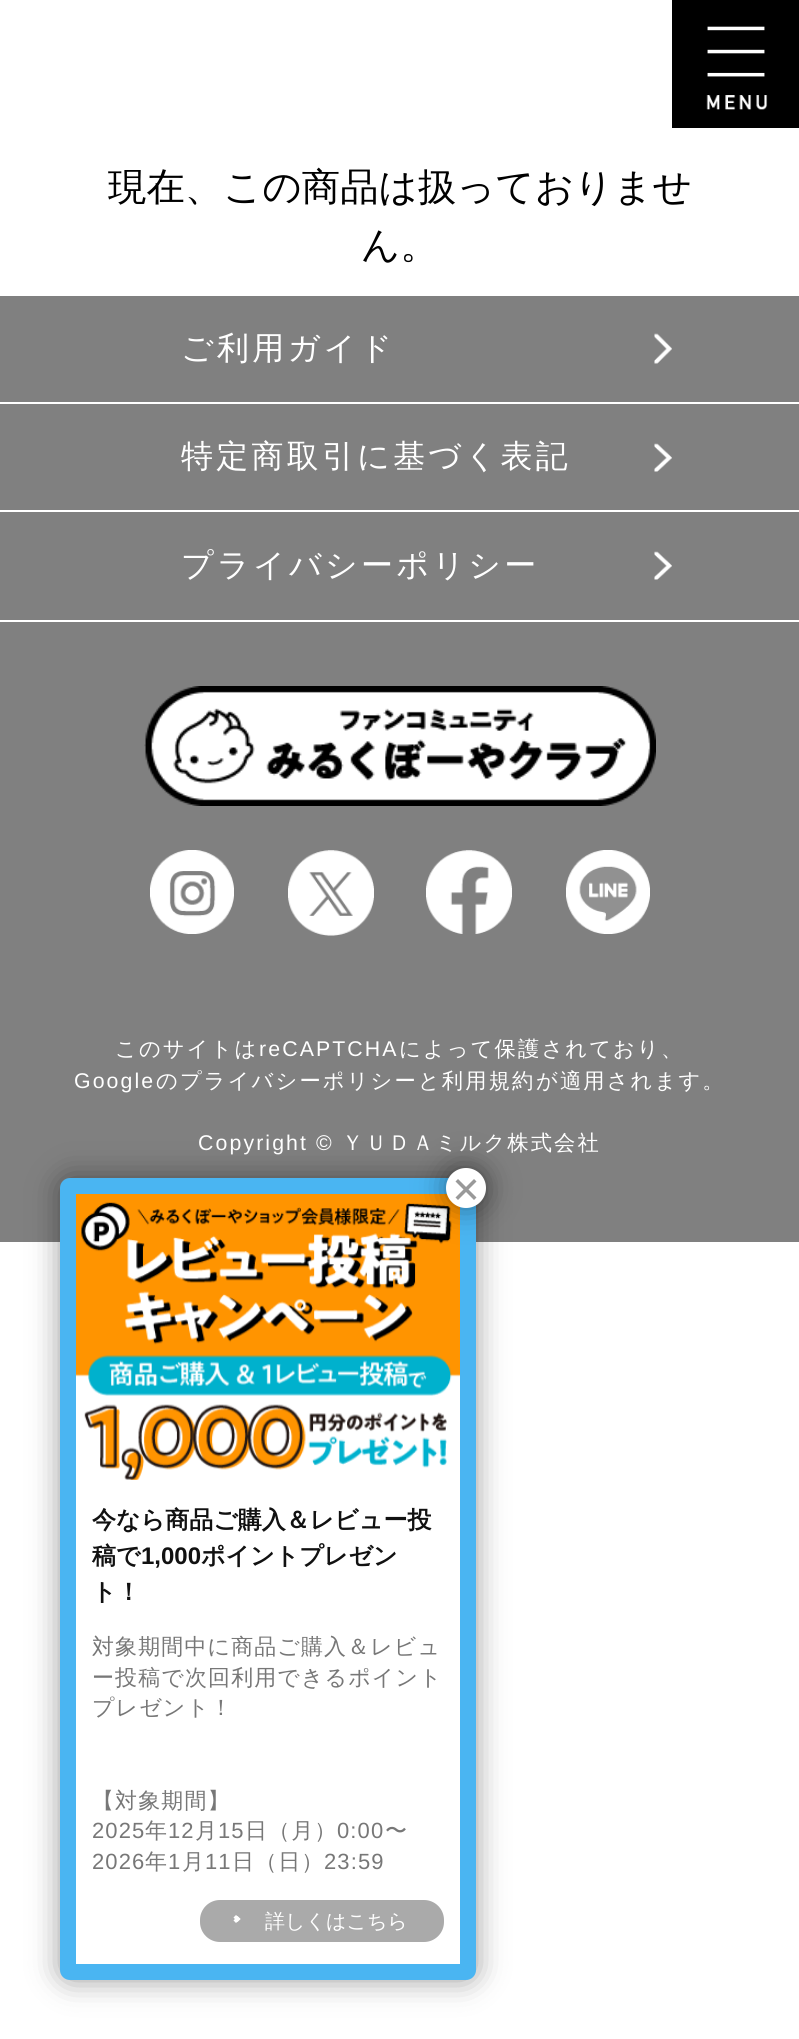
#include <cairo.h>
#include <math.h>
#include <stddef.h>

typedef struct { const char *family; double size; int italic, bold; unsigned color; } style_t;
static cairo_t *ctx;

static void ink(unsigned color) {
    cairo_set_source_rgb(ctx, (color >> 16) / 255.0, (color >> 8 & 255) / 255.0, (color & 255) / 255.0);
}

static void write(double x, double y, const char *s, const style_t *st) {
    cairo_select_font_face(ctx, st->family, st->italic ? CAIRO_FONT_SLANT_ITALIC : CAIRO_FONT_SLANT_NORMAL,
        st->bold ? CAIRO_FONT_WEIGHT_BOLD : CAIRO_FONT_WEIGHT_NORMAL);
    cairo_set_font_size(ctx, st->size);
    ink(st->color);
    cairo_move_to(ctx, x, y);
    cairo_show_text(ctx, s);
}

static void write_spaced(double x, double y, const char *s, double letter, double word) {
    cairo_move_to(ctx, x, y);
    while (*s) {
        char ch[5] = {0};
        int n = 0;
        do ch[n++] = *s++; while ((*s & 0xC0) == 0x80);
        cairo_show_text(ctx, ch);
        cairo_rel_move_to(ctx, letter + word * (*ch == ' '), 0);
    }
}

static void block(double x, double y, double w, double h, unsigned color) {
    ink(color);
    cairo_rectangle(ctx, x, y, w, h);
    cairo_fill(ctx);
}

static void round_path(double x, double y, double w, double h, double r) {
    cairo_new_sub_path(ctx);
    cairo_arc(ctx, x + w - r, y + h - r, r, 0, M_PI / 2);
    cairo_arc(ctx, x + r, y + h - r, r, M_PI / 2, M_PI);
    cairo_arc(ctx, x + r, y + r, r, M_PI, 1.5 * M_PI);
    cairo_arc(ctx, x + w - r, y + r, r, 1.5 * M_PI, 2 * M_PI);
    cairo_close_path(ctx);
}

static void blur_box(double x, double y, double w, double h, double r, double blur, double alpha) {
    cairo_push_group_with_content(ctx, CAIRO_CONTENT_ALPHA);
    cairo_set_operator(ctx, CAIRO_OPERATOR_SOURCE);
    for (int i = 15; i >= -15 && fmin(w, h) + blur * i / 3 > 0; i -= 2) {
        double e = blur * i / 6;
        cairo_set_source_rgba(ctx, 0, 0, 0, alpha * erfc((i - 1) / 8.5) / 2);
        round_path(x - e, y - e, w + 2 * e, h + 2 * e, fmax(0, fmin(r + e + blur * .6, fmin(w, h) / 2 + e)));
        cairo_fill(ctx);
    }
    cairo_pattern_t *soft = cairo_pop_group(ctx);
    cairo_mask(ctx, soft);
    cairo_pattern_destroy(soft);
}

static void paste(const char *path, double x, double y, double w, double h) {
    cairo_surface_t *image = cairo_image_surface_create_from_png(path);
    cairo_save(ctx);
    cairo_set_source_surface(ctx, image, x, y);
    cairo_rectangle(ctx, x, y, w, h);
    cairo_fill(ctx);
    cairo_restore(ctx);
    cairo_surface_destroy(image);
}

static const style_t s1 = {"WenQuanYi Zen Hei Medium", 38.4, 0, 0, 0x000000};
static const style_t s2 = {"WenQuanYi Zen Hei", 24, 0, 1, 0x111111};
static const style_t s3 = {"Liberation Sans", 24, 0, 1, 0x111111};
static const style_t s4 = {"WenQuanYi Zen Hei Medium", 20, 0, 0, 0xffffff};

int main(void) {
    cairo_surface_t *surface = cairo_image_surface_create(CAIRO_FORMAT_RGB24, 799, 2039);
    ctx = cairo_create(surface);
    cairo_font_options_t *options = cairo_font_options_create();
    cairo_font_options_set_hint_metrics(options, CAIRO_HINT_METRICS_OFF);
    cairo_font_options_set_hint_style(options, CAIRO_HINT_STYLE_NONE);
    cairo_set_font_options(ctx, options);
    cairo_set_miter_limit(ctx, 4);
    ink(0xffffff);
    cairo_paint(ctx);
    paste("pic1.png", 672, 0, 127, 128);
    write(108, 200, "現在、この商品は扱っておりませ", &s1);
    write(361, 258, "ん。", &s1);
    block(0, 296, 799, 946, 0x808080);
    block(0, 402, 799, 2, 0xffffff);
    cairo_set_font_size(ctx, 32);
    write_spaced(181, 359, "ご利用ガイド", 3.25, 0);
    paste("pic2.png", 654, 333, 18, 31);
    block(0, 510, 799, 2, 0xffffff);
    write_spaced(181, 467, "特定商取引に基づく表記", 3.25, 0);
    paste("pic3.png", 654, 443, 18, 29);
    block(0, 620, 799, 2, 0xffffff);
    write_spaced(181, 576, "プライバシーポリシー", 3.25, 0);
    paste("pic3.png", 654, 551, 18, 29);
    paste("pic4.png", 144, 686, 512, 120);
    paste("pic5.png", 150, 850, 84, 84);
    paste("pic6.png", 288, 850, 86, 86);
    paste("pic7.png", 426, 850, 86, 84);
    paste("pic8.png", 566, 850, 84, 84);
    cairo_set_font_size(ctx, 21.3);
    write_spaced(115, 1056, "このサイトは", 2.1, 0);
    cairo_select_font_face(ctx, "Liberation Sans", CAIRO_FONT_SLANT_NORMAL, CAIRO_FONT_WEIGHT_NORMAL);
    write_spaced(259, 1056, "reCAPTCHA", 2.1, 0);
    cairo_select_font_face(ctx, "WenQuanYi Zen Hei Medium", CAIRO_FONT_SLANT_NORMAL, CAIRO_FONT_WEIGHT_NORMAL);
    write_spaced(399, 1056, "によって保護されており、", 2.1, 0);
    cairo_select_font_face(ctx, "Liberation Sans", CAIRO_FONT_SLANT_NORMAL, CAIRO_FONT_WEIGHT_NORMAL);
    write_spaced(74, 1088, "Google", 2.1, 0);
    cairo_select_font_face(ctx, "WenQuanYi Zen Hei Medium", CAIRO_FONT_SLANT_NORMAL, CAIRO_FONT_WEIGHT_NORMAL);
    write_spaced(156, 1088, "のプライバシーポリシーと利用規約", 2.1, 0);
    write_spaced(536, 1088, "が適用されます。", 2.1, 0);
    cairo_select_font_face(ctx, "Liberation Sans", CAIRO_FONT_SLANT_NORMAL, CAIRO_FONT_WEIGHT_NORMAL);
    write_spaced(198, 1150, "Copyright ©", 2.1, 0);
    cairo_select_font_face(ctx, "WenQuanYi Zen Hei Medium", CAIRO_FONT_SLANT_NORMAL, CAIRO_FONT_WEIGHT_NORMAL);
    write_spaced(342, 1150, "ＹＵＤＡミルク株式会社", 2.1, 0);
    ink(0x000000);
    blur_box(60, 1178, 416, 802, 10, 15, 0.4);
    ink(0x4ab5f2);
    round_path(60, 1178, 416, 802, 10);
    cairo_fill(ctx);
    block(76, 1479, 384, 485, 0xffffff);
    paste("pic9.png", 76, 1194, 384, 286);
    ink(0x000000);
    blur_box(446, 1168, 40, 40, 20, 15, 0.4);
    ink(0xffffff);
    cairo_arc(ctx, 466, 1188, 20, 0, 2 * M_PI);
    cairo_fill(ctx);
    ink(0x999999);
    cairo_new_path(ctx);
    cairo_move_to(ctx, 455.5, 1181.5);
    cairo_line_to(ctx, 458, 1179);
    cairo_line_to(ctx, 476.5, 1197.5);
    cairo_line_to(ctx, 474, 1200);
    cairo_close_path(ctx);
    cairo_fill(ctx);
    cairo_new_path(ctx);
    cairo_move_to(ctx, 474, 1179);
    cairo_line_to(ctx, 476.5, 1181.5);
    cairo_line_to(ctx, 458, 1200);
    cairo_line_to(ctx, 455.5, 1197.5);
    cairo_close_path(ctx);
    cairo_fill(ctx);
    write(92, 1528, "今なら商品ご購入＆レビュー投", &s2);
    write(92, 1564, "稿で", &s2);
    write(141, 1564, "1,000", &s3);
    write(201, 1564, "ポイントプレゼン", &s2);
    write(92, 1600, "ト！", &s2);
    cairo_select_font_face(ctx, "WenQuanYi Zen Hei Medium", CAIRO_FONT_SLANT_NORMAL, CAIRO_FONT_WEIGHT_NORMAL);
    cairo_set_font_size(ctx, 22);
    ink(0x777777);
    write_spaced(92, 1654, "対象期間中に商品ご購入＆レビュ", 1.1, 0);
    write_spaced(92, 1685, "ー投稿で次回利用できるポイント", 1.1, 0);
    write_spaced(92, 1715, "プレゼント！", 1.1, 0);
    write_spaced(92, 1808, "【対象期間】", 1.1, 0);
    cairo_select_font_face(ctx, "Liberation Sans", CAIRO_FONT_SLANT_NORMAL, CAIRO_FONT_WEIGHT_NORMAL);
    write_spaced(92, 1838, "2025", 1.1, 0);
    cairo_select_font_face(ctx, "WenQuanYi Zen Hei Medium", CAIRO_FONT_SLANT_NORMAL, CAIRO_FONT_WEIGHT_NORMAL);
    write_spaced(145, 1838, "年", 1.1, 0);
    cairo_select_font_face(ctx, "Liberation Sans", CAIRO_FONT_SLANT_NORMAL, CAIRO_FONT_WEIGHT_NORMAL);
    write_spaced(168, 1838, "12", 1.1, 0);
    cairo_select_font_face(ctx, "WenQuanYi Zen Hei Medium", CAIRO_FONT_SLANT_NORMAL, CAIRO_FONT_WEIGHT_NORMAL);
    write_spaced(195, 1838, "月", 1.1, 0);
    cairo_select_font_face(ctx, "Liberation Sans", CAIRO_FONT_SLANT_NORMAL, CAIRO_FONT_WEIGHT_NORMAL);
    write_spaced(218, 1838, "15", 1.1, 0);
    cairo_select_font_face(ctx, "WenQuanYi Zen Hei Medium", CAIRO_FONT_SLANT_NORMAL, CAIRO_FONT_WEIGHT_NORMAL);
    write_spaced(245, 1838, "日（月）", 1.1, 0);
    cairo_select_font_face(ctx, "Liberation Sans", CAIRO_FONT_SLANT_NORMAL, CAIRO_FONT_WEIGHT_NORMAL);
    write_spaced(337, 1838, "0:00", 1.1, 0);
    cairo_select_font_face(ctx, "WenQuanYi Zen Hei Medium", CAIRO_FONT_SLANT_NORMAL, CAIRO_FONT_WEIGHT_NORMAL);
    write_spaced(385, 1838, "〜", 1.1, 0);
    cairo_select_font_face(ctx, "Liberation Sans", CAIRO_FONT_SLANT_NORMAL, CAIRO_FONT_WEIGHT_NORMAL);
    write_spaced(92, 1869, "2026", 1.1, 0);
    cairo_select_font_face(ctx, "WenQuanYi Zen Hei Medium", CAIRO_FONT_SLANT_NORMAL, CAIRO_FONT_WEIGHT_NORMAL);
    write_spaced(145, 1869, "年", 1.1, 0);
    cairo_select_font_face(ctx, "Liberation Sans", CAIRO_FONT_SLANT_NORMAL, CAIRO_FONT_WEIGHT_NORMAL);
    write_spaced(168, 1869, "1", 1.1, 0);
    cairo_select_font_face(ctx, "WenQuanYi Zen Hei Medium", CAIRO_FONT_SLANT_NORMAL, CAIRO_FONT_WEIGHT_NORMAL);
    write_spaced(182, 1869, "月", 1.1, 0);
    cairo_select_font_face(ctx, "Liberation Sans", CAIRO_FONT_SLANT_NORMAL, CAIRO_FONT_WEIGHT_NORMAL);
    write_spaced(205, 1869, "11", 1.1, 0);
    cairo_select_font_face(ctx, "WenQuanYi Zen Hei Medium", CAIRO_FONT_SLANT_NORMAL, CAIRO_FONT_WEIGHT_NORMAL);
    write_spaced(232, 1869, "日（日）", 1.1, 0);
    cairo_select_font_face(ctx, "Liberation Sans", CAIRO_FONT_SLANT_NORMAL, CAIRO_FONT_WEIGHT_NORMAL);
    write_spaced(324, 1869, "23:59", 1.1, 0);
    ink(0xaaaaaa);
    round_path(200, 1900, 244, 42, 20);
    cairo_fill(ctx);
    ink(0xffffff);
    cairo_new_path(ctx);
    cairo_move_to(ctx, 236, 1915);
    cairo_line_to(ctx, 240.5, 1919);
    cairo_line_to(ctx, 237.5, 1922);
    cairo_line_to(ctx, 233.5, 1917.5);
    cairo_close_path(ctx);
    cairo_fill(ctx);
    cairo_new_path(ctx);
    cairo_move_to(ctx, 237.5, 1916);
    cairo_line_to(ctx, 240.5, 1919);
    cairo_line_to(ctx, 236, 1923);
    cairo_line_to(ctx, 233.5, 1920.5);
    cairo_close_path(ctx);
    cairo_fill(ctx);
    write(265, 1928, "詳しくはこちら", &s4);
    cairo_surface_write_to_png(surface, "screenshot.png");
    cairo_font_options_destroy(options);
    cairo_destroy(ctx);
    cairo_surface_destroy(surface);
    return 0;
}
